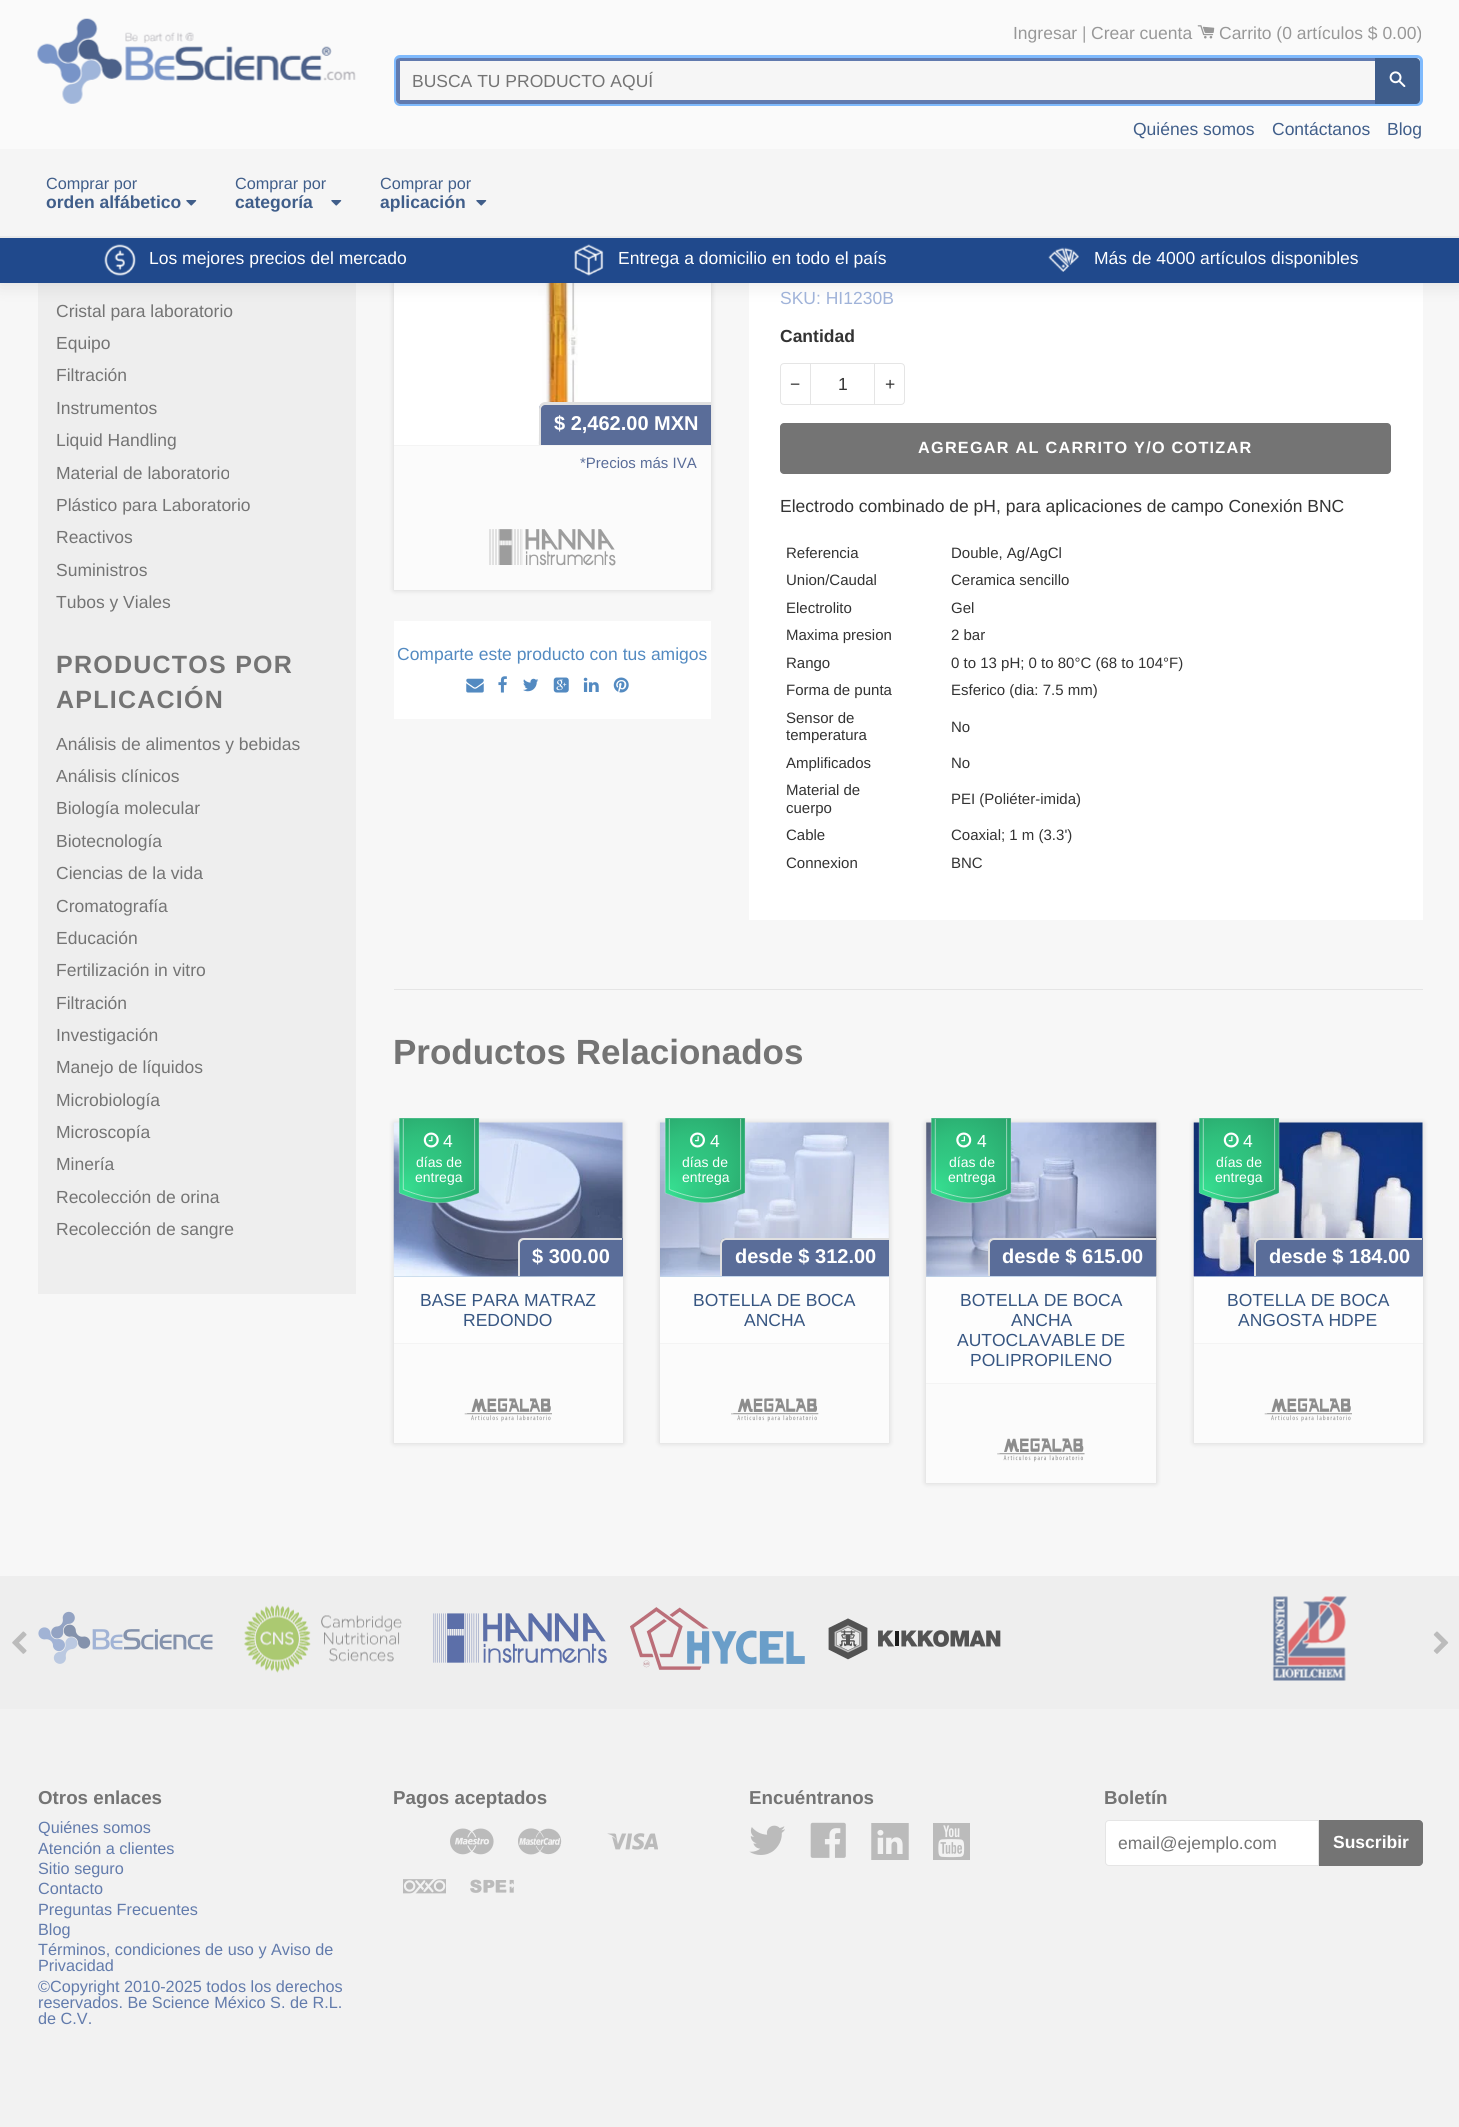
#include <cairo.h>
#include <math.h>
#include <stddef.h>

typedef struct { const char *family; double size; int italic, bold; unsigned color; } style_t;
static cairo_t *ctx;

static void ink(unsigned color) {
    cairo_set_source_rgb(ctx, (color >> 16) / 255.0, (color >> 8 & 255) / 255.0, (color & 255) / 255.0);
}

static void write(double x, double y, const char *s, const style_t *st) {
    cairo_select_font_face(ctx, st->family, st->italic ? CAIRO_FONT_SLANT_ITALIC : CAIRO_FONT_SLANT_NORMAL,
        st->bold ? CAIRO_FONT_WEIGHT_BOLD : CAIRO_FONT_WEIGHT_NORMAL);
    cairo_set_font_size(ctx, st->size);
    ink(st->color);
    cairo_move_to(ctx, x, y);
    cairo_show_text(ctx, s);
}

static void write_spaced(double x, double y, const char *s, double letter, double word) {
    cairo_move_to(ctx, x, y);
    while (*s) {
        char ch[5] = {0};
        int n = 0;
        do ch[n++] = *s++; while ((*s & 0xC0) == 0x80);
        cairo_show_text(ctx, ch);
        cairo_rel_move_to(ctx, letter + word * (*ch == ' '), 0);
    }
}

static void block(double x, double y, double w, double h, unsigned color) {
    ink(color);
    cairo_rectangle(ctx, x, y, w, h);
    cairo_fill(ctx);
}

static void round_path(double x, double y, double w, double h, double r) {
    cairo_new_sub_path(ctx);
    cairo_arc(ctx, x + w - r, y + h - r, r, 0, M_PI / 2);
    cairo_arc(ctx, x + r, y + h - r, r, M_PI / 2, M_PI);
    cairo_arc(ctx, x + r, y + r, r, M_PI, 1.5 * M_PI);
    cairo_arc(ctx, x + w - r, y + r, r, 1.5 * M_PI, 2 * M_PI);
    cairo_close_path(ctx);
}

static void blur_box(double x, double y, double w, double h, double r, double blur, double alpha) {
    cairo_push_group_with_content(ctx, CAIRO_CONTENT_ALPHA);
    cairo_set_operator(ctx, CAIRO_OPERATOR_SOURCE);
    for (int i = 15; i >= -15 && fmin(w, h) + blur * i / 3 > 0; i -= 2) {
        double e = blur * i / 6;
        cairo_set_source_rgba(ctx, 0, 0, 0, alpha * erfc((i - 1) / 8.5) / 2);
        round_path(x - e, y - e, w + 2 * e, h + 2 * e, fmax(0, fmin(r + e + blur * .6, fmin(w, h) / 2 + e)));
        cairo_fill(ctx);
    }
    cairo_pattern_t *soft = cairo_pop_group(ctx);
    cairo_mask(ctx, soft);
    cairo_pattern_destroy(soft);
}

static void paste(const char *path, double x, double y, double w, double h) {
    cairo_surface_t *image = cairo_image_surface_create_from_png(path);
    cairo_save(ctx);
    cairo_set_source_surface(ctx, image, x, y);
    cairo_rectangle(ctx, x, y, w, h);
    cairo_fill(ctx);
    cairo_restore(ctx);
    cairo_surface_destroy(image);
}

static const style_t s1 = {"Liberation Sans", 17.5, 0, 0, 0x989898};
static const style_t s2 = {"Liberation Sans", 17.5, 0, 0, 0xa4a4a4};
static const style_t s3 = {"Liberation Sans", 17.5, 0, 0, 0x747474};
static const style_t s4 = {"Liberation Sans", 17.5, 0, 0, 0x405e8a};
static const style_t s5 = {"Liberation Sans", 16.25, 0, 0, 0x405e8a};
static const style_t s6 = {"Liberation Sans", 17.5, 0, 1, 0x405e8a};
static const style_t s7 = {"Liberation Sans", 17.5, 0, 0, 0xffffff};
static const style_t s8 = {"Liberation Sans", 20, 0, 1, 0xffffff};
static const style_t s9 = {"Liberation Sans", 15, 0, 0, 0x5a6d99};
static const style_t s10 = {"Liberation Sans", 17.5, 0, 0, 0x538ac1};
static const style_t s11 = {"Liberation Sans", 17.5, 0, 0, 0xa0b3d9};
static const style_t s12 = {"Liberation Sans", 17.5, 0, 1, 0x333333};
static const style_t s13 = {"Liberation Sans", 17.5, 0, 0, 0x333333};
static const style_t s14 = {"Liberation Sans", 15, 0, 0, 0x333333};
static const style_t s15 = {"Liberation Sans", 35, 0, 1, 0x747474};
static const style_t s16 = {"Liberation Sans", 14, 0, 0, 0xffffff};
static const style_t s17 = {"Liberation Sans", 17.5, 0, 0, 0x375682};
static const style_t s18 = {"Liberation Sans", 18.75, 0, 1, 0x747474};
static const style_t s19 = {"Liberation Sans", 16.25, 0, 0, 0x627bac};
static const style_t s20 = {"Liberation Sans", 17.5, 0, 1, 0xffffff};

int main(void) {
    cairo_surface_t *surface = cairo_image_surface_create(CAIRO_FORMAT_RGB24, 1459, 2127);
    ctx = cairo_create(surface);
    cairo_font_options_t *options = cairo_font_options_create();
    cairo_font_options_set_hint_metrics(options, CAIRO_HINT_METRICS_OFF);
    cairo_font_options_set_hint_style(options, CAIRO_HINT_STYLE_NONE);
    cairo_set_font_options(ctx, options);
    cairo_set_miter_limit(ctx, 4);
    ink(0xf7f7f7);
    cairo_paint(ctx);
    block(38, 283, 318, 1011, 0xeeeeee);
    ink(0x000000);
    blur_box(394, 195, 317, 395, 0, 3, 0.15);
    block(394, 283, 317, 162, 0xffffff);
    paste("pic8.png", 538, 283, 40, 162);
    block(749, 283, 674, 637, 0xffffff);
    ink(0x000000);
    blur_box(0, 3, 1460, 282, 0, 9, 0.1);
    block(0, 0, 1459, 149, 0xfafafa);
    paste("pic1.png", 37, 18, 319, 86);
    write(1013, 39, "Ingresar", &s1);
    write(1082, 39, "|", &s2);
    write(1091, 39, "Crear cuenta", &s1);
    paste("pic2.png", 1197, 25, 18, 14);
    write(1219, 39, "Carrito (0 artículos $ 0.00)", &s1);
    round_path(395.5, 56.5, 1026, 48, 4.5);
    ink(0x7fbafd);
    cairo_set_line_width(ctx, 3);
    cairo_stroke(ctx);
    ink(0xf6f6f6);
    cairo_new_path(ctx);
    cairo_move_to(ctx, 400, 58);
    cairo_line_to(ctx, 1375, 58);
    cairo_line_to(ctx, 1375, 104);
    cairo_line_to(ctx, 400, 104);
    cairo_curve_to(ctx, 398, 104, 396, 102, 396, 100);
    cairo_line_to(ctx, 396, 62);
    cairo_curve_to(ctx, 396, 60, 398, 58, 400, 58);
    cairo_close_path(ctx);
    cairo_fill(ctx);
    ink(0x617aae);
    cairo_set_fill_rule(ctx, CAIRO_FILL_RULE_EVEN_ODD);
    cairo_new_path(ctx);
    cairo_move_to(ctx, 400, 58);
    cairo_line_to(ctx, 1375, 58);
    cairo_line_to(ctx, 1375, 104);
    cairo_line_to(ctx, 400, 104);
    cairo_curve_to(ctx, 398, 104, 396, 102, 396, 100);
    cairo_line_to(ctx, 396, 61);
    cairo_curve_to(ctx, 396, 59, 398, 58, 400, 58);
    cairo_close_path(ctx);
    cairo_move_to(ctx, 400, 61);
    cairo_line_to(ctx, 1375, 61);
    cairo_line_to(ctx, 1375, 100);
    cairo_line_to(ctx, 400, 100);
    cairo_close_path(ctx);
    cairo_fill(ctx);
    write(412, 87, "BUSCA TU PRODUCTO AQUÍ", &s3);
    ink(0x3f5d8b);
    cairo_new_path(ctx);
    cairo_move_to(ctx, 1375, 58);
    cairo_line_to(ctx, 1416, 58);
    cairo_curve_to(ctx, 1418, 58, 1420, 60, 1420, 62);
    cairo_line_to(ctx, 1420, 100);
    cairo_curve_to(ctx, 1420, 102, 1418, 104, 1416, 104);
    cairo_line_to(ctx, 1375, 104);
    cairo_close_path(ctx);
    cairo_fill(ctx);
    paste("pic3.png", 1389, 71, 17, 16);
    write(1133, 135, "Quiénes somos", &s4);
    write(1272, 135, "Contáctanos", &s4);
    write(1387, 135, "Blog", &s4);
    block(0, 149, 1459, 87, 0xf5f5f5);
    write(46, 189, "Comprar por", &s5);
    write(46, 208, "orden alfábetico", &s6);
    paste("pic4.png", 186, 200, 11, 6);
    write(235, 189, "Comprar por", &s5);
    write(235, 208, "categoría", &s6);
    paste("pic4.png", 331, 200, 11, 6);
    write(380, 189, "Comprar por", &s5);
    write(380, 208, "aplicación", &s6);
    paste("pic4.png", 476, 200, 11, 6);
    block(0, 236, 1459, 2, 0xeaeaea);
    block(0, 238, 1459, 45, 0x20498c);
    paste("pic5.png", 104, 244, 32, 32);
    write(149, 264, "Los mejores precios del mercado", &s7);
    paste("pic6.png", 574, 244, 30, 32);
    write(618, 264, "Entrega a domicilio en todo el país", &s7);
    paste("pic7.png", 1048, 247, 31, 25);
    write(1094, 264, "Más de 4000 artículos disponibles", &s7);
    write(56, 317, "Cristal para laboratorio", &s3);
    write(56, 349, "Equipo", &s3);
    write(56, 381, "Filtración", &s3);
    write(56, 414, "Instrumentos", &s3);
    write(56, 446, "Liquid Handling", &s3);
    write(56, 479, "Material de laboratorio", &s3);
    write(56, 511, "Plástico para Laboratorio", &s3);
    write(56, 543, "Reactivos", &s3);
    write(56, 576, "Suministros", &s3);
    write(56, 608, "Tubos y Viales", &s3);
    cairo_select_font_face(ctx, "Liberation Sans", CAIRO_FONT_SLANT_NORMAL, CAIRO_FONT_WEIGHT_BOLD);
    cairo_set_font_size(ctx, 25);
    write_spaced(56, 673, "PRODUCTOS POR", 1.25, 0);
    write_spaced(56, 708, "APLICACIÓN", 1.25, 0);
    write(56, 750, "Análisis de alimentos y bebidas", &s3);
    write(56, 782, "Análisis clínicos", &s3);
    write(56, 814, "Biología molecular", &s3);
    write(56, 847, "Biotecnología", &s3);
    write(56, 879, "Ciencias de la vida", &s3);
    write(56, 912, "Cromatografía", &s3);
    write(56, 944, "Educación", &s3);
    write(56, 976, "Fertilización in vitro", &s3);
    write(56, 1009, "Filtración", &s3);
    write(56, 1041, "Investigación", &s3);
    write(56, 1073, "Manejo de líquidos", &s3);
    write(56, 1106, "Microbiología", &s3);
    write(56, 1138, "Microscopía", &s3);
    write(56, 1170, "Minería", &s3);
    write(56, 1203, "Recolección de orina", &s3);
    write(56, 1235, "Recolección de sangre", &s3);
    ink(0x5a6d99);
    cairo_new_path(ctx);
    cairo_move_to(ctx, 545, 403);
    cairo_line_to(ctx, 711, 403);
    cairo_line_to(ctx, 711, 445);
    cairo_line_to(ctx, 539, 445);
    cairo_line_to(ctx, 539, 409);
    cairo_curve_to(ctx, 539, 405.5, 541.5, 403, 545, 403);
    cairo_close_path(ctx);
    cairo_fill(ctx);
    ink(0xe0e0e0);
    cairo_new_path(ctx);
    cairo_move_to(ctx, 545, 402);
    cairo_line_to(ctx, 711, 402);
    cairo_line_to(ctx, 711, 445);
    cairo_line_to(ctx, 539, 445);
    cairo_line_to(ctx, 539, 409);
    cairo_curve_to(ctx, 539, 405, 542, 402, 545, 402);
    cairo_close_path(ctx);
    cairo_move_to(ctx, 545, 405);
    cairo_line_to(ctx, 711, 405);
    cairo_line_to(ctx, 711, 445);
    cairo_line_to(ctx, 541, 445);
    cairo_line_to(ctx, 541, 409);
    cairo_curve_to(ctx, 541, 407, 543, 405, 545, 405);
    cairo_close_path(ctx);
    cairo_fill(ctx);
    write(554, 430, "$ 2,462.00 MXN", &s8);
    block(394, 446, 317, 144, 0xfbfbfb);
    block(394, 445, 317, 1, 0xf4f4f4);
    write(580, 468, "*Precios más IVA", &s9);
    paste("pic9.png", 489, 529, 127, 37);
    block(394, 621, 317, 98, 0xffffff);
    write(397, 660, "Comparte este producto con tus amigos", &s10);
    paste("pic10.png", 466, 678, 18, 15);
    paste("pic11.png", 498, 676, 9, 17);
    paste("pic12.png", 523, 678, 16, 14);
    paste("pic13.png", 553, 677, 16, 16);
    paste("pic14.png", 583, 677, 16, 15);
    paste("pic15.png", 613, 677, 16, 16);
    write(780, 304, "SKU: HI1230B", &s11);
    write(780, 342, "Cantidad", &s12);
    round_path(780.5, 363.5, 124, 41, 3.5);
    ink(0xe5e5e5);
    cairo_set_line_width(ctx, 1);
    cairo_stroke(ctx);
    block(810, 363, 1, 42, 0xe5e5e5);
    write(790, 390, "−", &s13);
    write(838, 390, "1", &s13);
    block(874, 363, 1, 42, 0xe5e5e5);
    write(885, 390, "+", &s13);
    ink(0x747474);
    round_path(780, 423, 611, 51, 4);
    cairo_fill(ctx);
    cairo_select_font_face(ctx, "Liberation Sans", CAIRO_FONT_SLANT_NORMAL, CAIRO_FONT_WEIGHT_BOLD);
    cairo_set_font_size(ctx, 16.25);
    ink(0xffffff);
    write_spaced(918, 453, "AGREGAR AL CARRITO Y/O COTIZAR", 1.25, 0);
    write(780, 512, "Electrodo combinado de pH, para aplicaciones de campo Conexión BNC", &s13);
    write(786, 558, "Referencia", &s14);
    write(951, 558, "Double, Ag/AgCl", &s14);
    write(786, 585, "Union/Caudal", &s14);
    write(951, 585, "Ceramica sencillo", &s14);
    write(786, 613, "Electrolito", &s14);
    write(951, 613, "Gel", &s14);
    write(786, 640, "Maxima presion", &s14);
    write(951, 640, "2 bar", &s14);
    write(786, 668, "Rango", &s14);
    write(951, 668, "0 to 13 pH; 0 to 80°C (68 to 104°F)", &s14);
    write(786, 695, "Forma de punta", &s14);
    write(951, 695, "Esferico (dia: 7.5 mm)", &s14);
    write(786, 723, "Sensor de", &s14);
    write(786, 740, "temperatura", &s14);
    write(951, 732, "No", &s14);
    write(786, 768, "Amplificados", &s14);
    write(951, 768, "No", &s14);
    write(786, 795, "Material de", &s14);
    write(786, 813, "cuerpo", &s14);
    write(951, 804, "PEI (Poliéter-imida)", &s14);
    write(786, 840, "Cable", &s14);
    write(951, 840, "Coaxial; 1 m (3.3')", &s14);
    write(786, 868, "Connexion", &s14);
    write(951, 868, "BNC", &s14);
    block(394, 989, 1029, 1, 0xe5e5e5);
    write(393, 1064, "Productos Relacionados", &s15);
    ink(0x000000);
    blur_box(394, 1123, 229, 320, 0, 3, 0.15);
    block(394, 1276, 229, 1, 0xc2d5e8);
    paste("pic18.png", 393, 1122, 230, 155);
    paste("pic16.png", 398, 1118, 82, 86);
    paste("pic17.png", 423, 1132, 16, 16);
    write(443, 1147, "4", &s7);
    write(416, 1167, "días de", &s16);
    write(415, 1182, "entrega", &s16);
    ink(0x5a6d99);
    cairo_new_path(ctx);
    cairo_move_to(ctx, 524, 1238);
    cairo_line_to(ctx, 623, 1238);
    cairo_line_to(ctx, 623, 1276);
    cairo_line_to(ctx, 518, 1276);
    cairo_line_to(ctx, 518, 1244);
    cairo_curve_to(ctx, 518, 1240.5, 520.5, 1238, 524, 1238);
    cairo_close_path(ctx);
    cairo_fill(ctx);
    ink(0xe0e0e0);
    cairo_new_path(ctx);
    cairo_move_to(ctx, 524, 1238);
    cairo_line_to(ctx, 622, 1238);
    cairo_line_to(ctx, 622, 1276);
    cairo_line_to(ctx, 518, 1276);
    cairo_line_to(ctx, 518, 1244);
    cairo_curve_to(ctx, 518, 1240, 520, 1238, 524, 1238);
    cairo_close_path(ctx);
    cairo_move_to(ctx, 524, 1240);
    cairo_line_to(ctx, 622, 1240);
    cairo_line_to(ctx, 622, 1276);
    cairo_line_to(ctx, 520, 1276);
    cairo_line_to(ctx, 520, 1244);
    cairo_curve_to(ctx, 520, 1242, 522, 1240, 524, 1240);
    cairo_close_path(ctx);
    cairo_fill(ctx);
    write(532, 1263, "$ 300.00", &s8);
    block(394, 1277, 229, 66, 0xfdfdfd);
    write(420, 1306, "BASE PARA MATRAZ", &s17);
    write(463, 1326, "REDONDO", &s17);
    block(394, 1344, 229, 99, 0xfbfbfb);
    block(394, 1343, 229, 1, 0xf4f4f4);
    paste("pic19.png", 464, 1398, 88, 24);
    ink(0x000000);
    blur_box(660, 1123, 229, 320, 0, 3, 0.15);
    block(660, 1276, 229, 1, 0xc2d5e8);
    paste("pic22.png", 660, 1122, 229, 155);
    paste("pic20.png", 664, 1118, 82, 86);
    paste("pic21.png", 690, 1132, 15, 16);
    write(710, 1147, "4", &s7);
    write(682, 1167, "días de", &s16);
    write(682, 1182, "entrega", &s16);
    ink(0x5a6d99);
    cairo_new_path(ctx);
    cairo_move_to(ctx, 726, 1238);
    cairo_line_to(ctx, 889, 1238);
    cairo_line_to(ctx, 889, 1276);
    cairo_line_to(ctx, 720, 1276);
    cairo_line_to(ctx, 720, 1244);
    cairo_curve_to(ctx, 720, 1240.5, 722.5, 1238, 726, 1238);
    cairo_close_path(ctx);
    cairo_fill(ctx);
    ink(0xe0e0e0);
    cairo_new_path(ctx);
    cairo_move_to(ctx, 726, 1238);
    cairo_line_to(ctx, 889, 1238);
    cairo_line_to(ctx, 889, 1276);
    cairo_line_to(ctx, 720, 1276);
    cairo_line_to(ctx, 720, 1244);
    cairo_curve_to(ctx, 720, 1240, 723, 1238, 726, 1238);
    cairo_close_path(ctx);
    cairo_move_to(ctx, 726, 1240);
    cairo_line_to(ctx, 889, 1240);
    cairo_line_to(ctx, 889, 1276);
    cairo_line_to(ctx, 722, 1276);
    cairo_line_to(ctx, 722, 1244);
    cairo_curve_to(ctx, 722, 1242, 724, 1240, 726, 1240);
    cairo_close_path(ctx);
    cairo_fill(ctx);
    write(735, 1263, "desde $ 312.00", &s8);
    block(660, 1277, 229, 66, 0xfdfdfd);
    write(693, 1306, "BOTELLA DE BOCA", &s17);
    write(744, 1326, "ANCHA", &s17);
    block(660, 1344, 229, 99, 0xfbfbfb);
    block(660, 1343, 229, 1, 0xf4f4f4);
    paste("pic23.png", 731, 1398, 88, 24);
    ink(0x000000);
    blur_box(926, 1123, 230, 360, 0, 3, 0.15);
    block(926, 1276, 230, 1, 0xc2d5e8);
    paste("pic26.png", 926, 1122, 231, 155);
    paste("pic24.png", 930, 1118, 82, 86);
    paste("pic25.png", 956, 1132, 16, 16);
    write(977, 1147, "4", &s7);
    write(949, 1167, "días de", &s16);
    write(948, 1182, "entrega", &s16);
    ink(0x5a6d99);
    cairo_new_path(ctx);
    cairo_move_to(ctx, 994, 1238);
    cairo_line_to(ctx, 1156, 1238);
    cairo_line_to(ctx, 1156, 1276);
    cairo_line_to(ctx, 988, 1276);
    cairo_line_to(ctx, 988, 1244);
    cairo_curve_to(ctx, 988, 1240.5, 990.5, 1238, 994, 1238);
    cairo_close_path(ctx);
    cairo_fill(ctx);
    ink(0xe0e0e0);
    cairo_new_path(ctx);
    cairo_move_to(ctx, 994, 1238);
    cairo_line_to(ctx, 1156, 1238);
    cairo_line_to(ctx, 1156, 1276);
    cairo_line_to(ctx, 988, 1276);
    cairo_line_to(ctx, 988, 1244);
    cairo_curve_to(ctx, 988, 1240, 990, 1238, 994, 1238);
    cairo_close_path(ctx);
    cairo_move_to(ctx, 994, 1240);
    cairo_line_to(ctx, 1156, 1240);
    cairo_line_to(ctx, 1156, 1276);
    cairo_line_to(ctx, 990, 1276);
    cairo_line_to(ctx, 990, 1244);
    cairo_curve_to(ctx, 990, 1242, 992, 1240, 994, 1240);
    cairo_close_path(ctx);
    cairo_fill(ctx);
    write(1002, 1263, "desde $ 615.00", &s8);
    block(926, 1277, 230, 106, 0xfdfdfd);
    write(960, 1306, "BOTELLA DE BOCA", &s17);
    write(1011, 1326, "ANCHA", &s17);
    write(957, 1346, "AUTOCLAVABLE DE", &s17);
    write(970, 1366, "POLIPROPILENO", &s17);
    block(926, 1384, 230, 99, 0xfbfbfb);
    block(926, 1383, 230, 1, 0xf4f4f4);
    paste("pic27.png", 997, 1438, 88, 24);
    ink(0x000000);
    blur_box(1194, 1123, 229, 320, 0, 3, 0.15);
    block(1194, 1276, 229, 1, 0xc2d5e8);
    paste("pic29.png", 1193, 1122, 230, 155);
    paste("pic28.png", 1198, 1118, 82, 86);
    paste("pic17.png", 1223, 1132, 16, 16);
    write(1243, 1147, "4", &s7);
    write(1216, 1167, "días de", &s16);
    write(1215, 1182, "entrega", &s16);
    ink(0x5a6d99);
    cairo_new_path(ctx);
    cairo_move_to(ctx, 1260, 1238);
    cairo_line_to(ctx, 1423, 1238);
    cairo_line_to(ctx, 1423, 1276);
    cairo_line_to(ctx, 1254, 1276);
    cairo_line_to(ctx, 1254, 1244);
    cairo_curve_to(ctx, 1254, 1240.5, 1256.5, 1238, 1260, 1238);
    cairo_close_path(ctx);
    cairo_fill(ctx);
    ink(0xe0e0e0);
    cairo_new_path(ctx);
    cairo_move_to(ctx, 1260, 1238);
    cairo_line_to(ctx, 1422, 1238);
    cairo_line_to(ctx, 1422, 1276);
    cairo_line_to(ctx, 1254, 1276);
    cairo_line_to(ctx, 1254, 1244);
    cairo_curve_to(ctx, 1254, 1240, 1257, 1238, 1260, 1238);
    cairo_close_path(ctx);
    cairo_move_to(ctx, 1260, 1240);
    cairo_line_to(ctx, 1422, 1240);
    cairo_line_to(ctx, 1422, 1276);
    cairo_line_to(ctx, 1256, 1276);
    cairo_line_to(ctx, 1256, 1244);
    cairo_curve_to(ctx, 1256, 1242, 1258, 1240, 1260, 1240);
    cairo_close_path(ctx);
    cairo_fill(ctx);
    write(1269, 1263, "desde $ 184.00", &s8);
    block(1194, 1277, 229, 66, 0xfdfdfd);
    write(1227, 1306, "BOTELLA DE BOCA", &s17);
    write(1238, 1326, "ANGOSTA HDPE", &s17);
    block(1194, 1344, 229, 99, 0xfbfbfb);
    block(1194, 1343, 229, 1, 0xf4f4f4);
    paste("pic19.png", 1264, 1398, 88, 24);
    block(0, 1576, 1459, 133, 0xeeeeee);
    paste("pic30.png", 38, 1611, 175, 53);
    paste("pic31.png", 244, 1604, 158, 69);
    paste("pic32.png", 433, 1613, 174, 51);
    paste("pic33.png", 630, 1607, 175, 63);
    paste("pic34.png", 828, 1618, 173, 42);
    paste("pic35.png", 1272, 1596, 75, 85);
    paste("pic36.png", 12, 1631, 15, 23);
    paste("pic37.png", 1433, 1631, 16, 23);
    block(0, 1709, 1459, 418, 0xf2f2f2);
    write(38, 1804, "Otros enlaces", &s18);
    write(38, 1833, "Quiénes somos", &s19);
    write(38, 1854, "Atención a clientes", &s19);
    write(38, 1874, "Sitio seguro", &s19);
    write(38, 1894, "Contacto", &s19);
    write(38, 1915, "Preguntas Frecuentes", &s19);
    write(38, 1935, "Blog", &s19);
    write(38, 1955, "Términos, condiciones de uso y Aviso de", &s19);
    write(38, 1971, "Privacidad", &s19);
    write(38, 1992, "©Copyright 2010-2025 todos los derechos", &s19);
    write(38, 2008, "reservados. Be Science México S. de R.L.", &s19);
    write(38, 2024, "de C.V.", &s19);
    write(393, 1804, "Pagos aceptados", &s18);
    paste("pic38.png", 450, 1828, 44, 27);
    paste("pic39.png", 518, 1828, 44, 27);
    paste("pic40.png", 607, 1833, 51, 17);
    paste("pic41.png", 403, 1879, 43, 15);
    paste("pic42.png", 470, 1879, 44, 14);
    write(749, 1804, "Encuéntranos", &s18);
    paste("pic43.png", 749, 1825, 36, 30);
    paste("pic44.png", 810, 1822, 36, 36);
    paste("pic45.png", 871, 1823, 38, 37);
    paste("pic46.png", 933, 1823, 37, 37);
    write(1104, 1804, "Boletín", &s18);
    ink(0xffffff);
    cairo_new_path(ctx);
    cairo_move_to(ctx, 1109, 1820.5);
    cairo_line_to(ctx, 1318.5, 1820.5);
    cairo_line_to(ctx, 1318.5, 1865.5);
    cairo_line_to(ctx, 1109, 1865.5);
    cairo_curve_to(ctx, 1107, 1865.5, 1105.5, 1864, 1105.5, 1862);
    cairo_line_to(ctx, 1105.5, 1824);
    cairo_curve_to(ctx, 1105.5, 1822, 1107, 1820.5, 1109, 1820.5);
    cairo_close_path(ctx);
    cairo_fill_preserve(ctx);
    ink(0xe5e5e5);
    cairo_stroke(ctx);
    write(1118, 1849, "email@ejemplo.com", &s3);
    cairo_new_path(ctx);
    cairo_move_to(ctx, 1319, 1820);
    cairo_line_to(ctx, 1419, 1820);
    cairo_curve_to(ctx, 1421, 1820, 1423, 1822, 1423, 1824);
    cairo_line_to(ctx, 1423, 1862);
    cairo_curve_to(ctx, 1423, 1864, 1421, 1866, 1419, 1866);
    cairo_line_to(ctx, 1319, 1866);
    cairo_close_path(ctx);
    cairo_fill(ctx);
    write(1333, 1848, "Suscribir", &s20);
    cairo_surface_write_to_png(surface, "screenshot.png");
    cairo_font_options_destroy(options);
    cairo_destroy(ctx);
    cairo_surface_destroy(surface);
    return 0;
}
